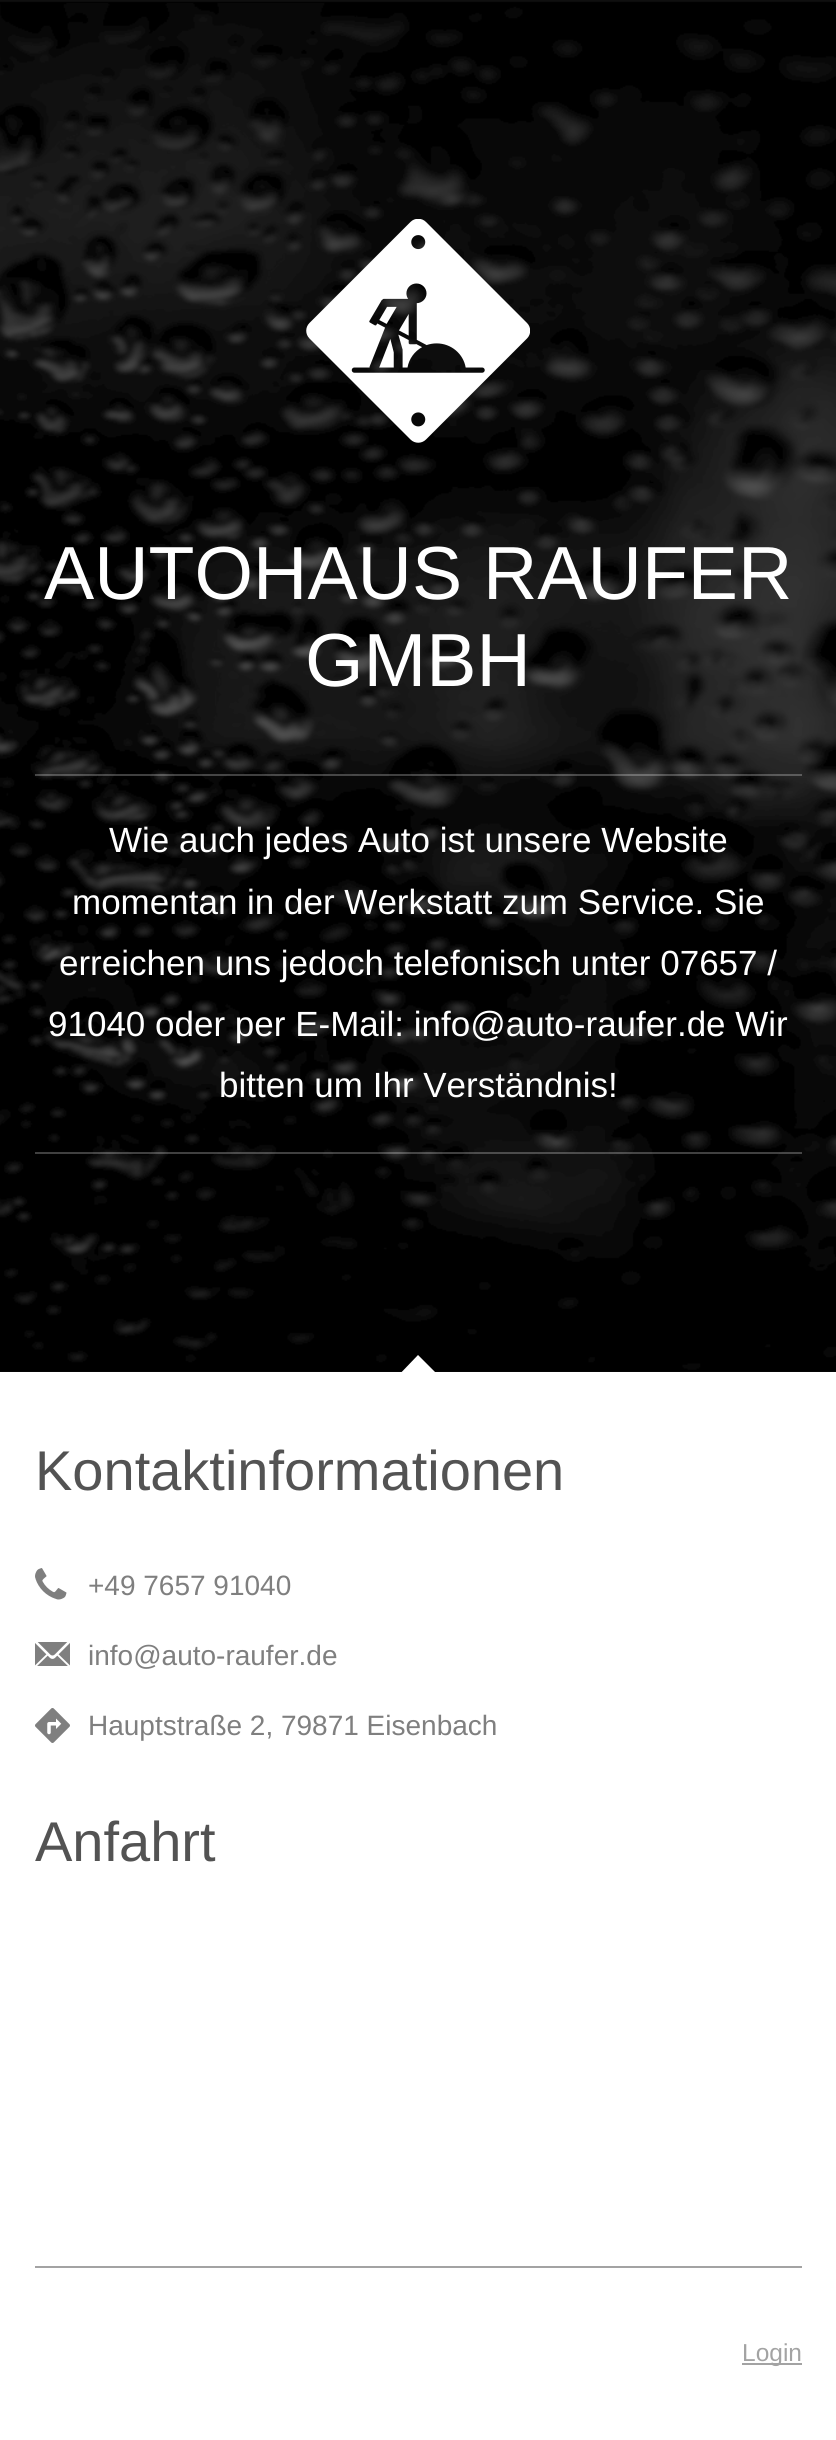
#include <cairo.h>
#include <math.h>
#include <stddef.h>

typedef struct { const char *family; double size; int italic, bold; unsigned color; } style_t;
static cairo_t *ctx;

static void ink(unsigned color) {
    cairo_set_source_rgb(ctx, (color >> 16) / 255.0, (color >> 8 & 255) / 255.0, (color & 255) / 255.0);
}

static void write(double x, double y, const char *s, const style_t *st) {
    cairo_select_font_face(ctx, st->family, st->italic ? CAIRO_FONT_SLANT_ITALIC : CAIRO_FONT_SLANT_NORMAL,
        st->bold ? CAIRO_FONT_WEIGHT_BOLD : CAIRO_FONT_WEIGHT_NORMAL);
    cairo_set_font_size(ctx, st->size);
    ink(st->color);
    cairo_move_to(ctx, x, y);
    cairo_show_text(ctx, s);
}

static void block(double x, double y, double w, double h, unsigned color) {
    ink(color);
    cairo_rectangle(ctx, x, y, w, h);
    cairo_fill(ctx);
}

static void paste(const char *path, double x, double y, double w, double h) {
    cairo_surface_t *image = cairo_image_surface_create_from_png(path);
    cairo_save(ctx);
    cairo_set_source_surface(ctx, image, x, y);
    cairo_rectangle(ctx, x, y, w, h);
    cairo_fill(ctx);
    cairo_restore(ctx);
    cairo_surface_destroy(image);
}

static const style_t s1 = {"Liberation Sans", 75.25, 0, 0, 0xffffff};
static const style_t s2 = {"Liberation Sans", 35, 0, 0, 0xffffff};
static const style_t s3 = {"Liberation Sans", 56, 0, 0, 0x535353};
static const style_t s4 = {"Liberation Sans", 28, 0, 0, 0x7f7f7f};
static const style_t s5 = {"Liberation Sans", 24.5, 0, 0, 0xa3a3a3};

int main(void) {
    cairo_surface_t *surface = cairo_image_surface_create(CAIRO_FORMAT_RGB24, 836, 2440);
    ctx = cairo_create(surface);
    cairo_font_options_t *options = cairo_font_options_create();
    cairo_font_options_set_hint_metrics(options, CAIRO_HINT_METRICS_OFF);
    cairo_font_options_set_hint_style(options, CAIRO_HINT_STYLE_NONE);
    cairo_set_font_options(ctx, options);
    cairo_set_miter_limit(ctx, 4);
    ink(0xffffff);
    cairo_paint(ctx);
    block(0, 0, 836, 1372, 0x232323);
    paste("pic1.png", 0, 0, 836, 1372);
    paste("pic2.png", 306, 219, 224, 224);
    write(44, 599, "AUTOHAUS RAUFER", &s1);
    write(305, 686, "GMBH", &s1);
    cairo_set_source_rgba(ctx, 1, 1, 1, 0.25);
    cairo_rectangle(ctx, 35, 774, 767, 2);
    cairo_fill(ctx);
    cairo_rectangle(ctx, 35, 1152, 767, 2);
    cairo_fill(ctx);
    write(109, 852, "Wie auch jedes Auto ist unsere Website", &s2);
    write(72, 914, "momentan in der Werkstatt zum Service. Sie", &s2);
    write(59, 975, "erreichen uns jedoch telefonisch unter 07657 /", &s2);
    write(48, 1036, "91040 oder per E-Mail: info@auto-raufer.de Wir", &s2);
    write(219, 1097, "bitten um Ihr Verständnis!", &s2);
    cairo_new_path(ctx);
    cairo_move_to(ctx, 418, 1355);
    cairo_line_to(ctx, 443, 1380);
    cairo_line_to(ctx, 418, 1404);
    cairo_line_to(ctx, 394, 1380);
    cairo_close_path(ctx);
    cairo_fill(ctx);
    write(35, 1490, "Kontaktinformationen", &s3);
    paste("pic3.png", 35, 1568, 32, 32);
    write(88, 1595, "+49 7657 91040", &s4);
    paste("pic4.png", 35, 1642, 35, 24);
    write(88, 1665, "info@auto-raufer.de", &s4);
    paste("pic5.png", 35, 1708, 35, 35);
    write(88, 1735, "Hauptstraße 2, 79871 Eisenbach", &s4);
    write(35, 1861, "Anfahrt", &s3);
    block(35, 2266, 767, 2, 0xa3a3a3);
    block(742, 2363, 60, 2, 0xa3a3a3);
    write(742, 2361, "Login", &s5);
    cairo_surface_write_to_png(surface, "screenshot.png");
    cairo_font_options_destroy(options);
    cairo_destroy(ctx);
    cairo_surface_destroy(surface);
    return 0;
}
